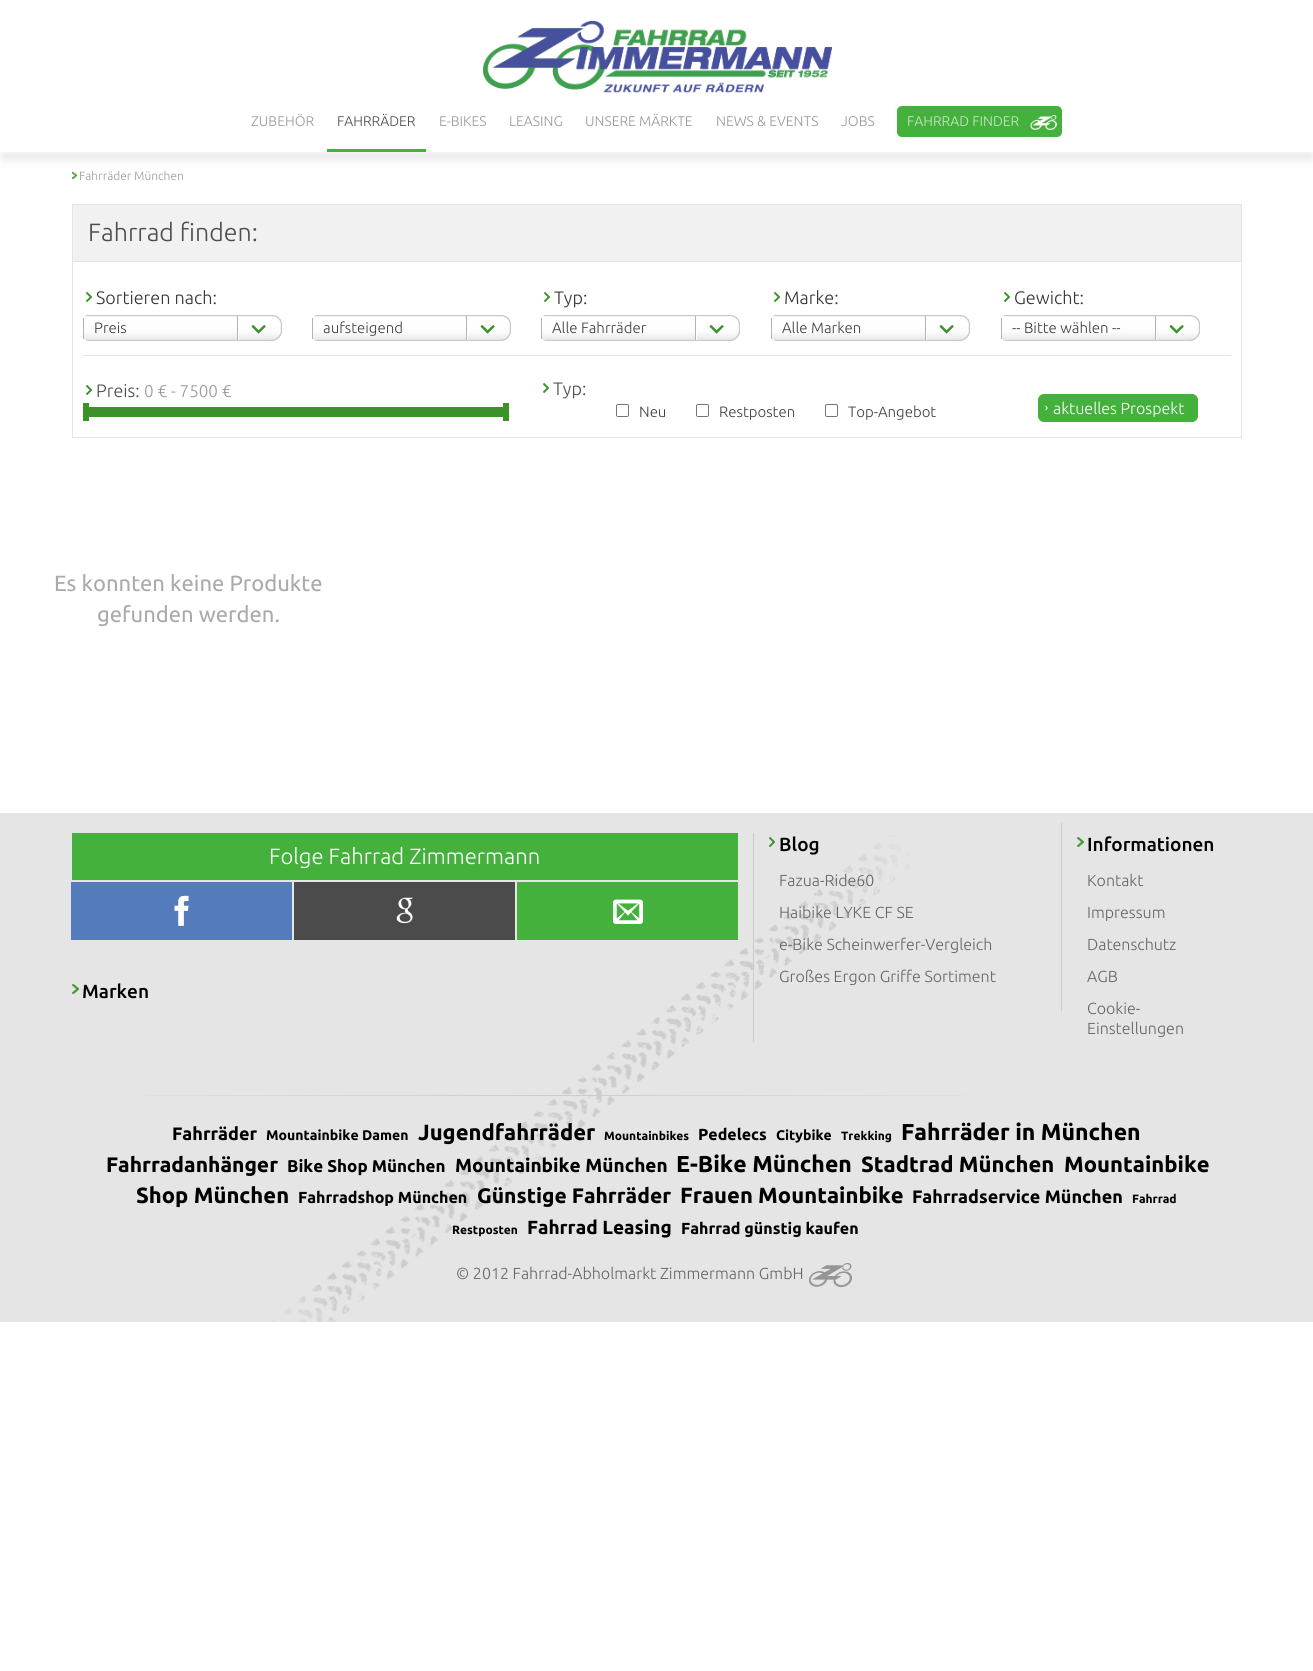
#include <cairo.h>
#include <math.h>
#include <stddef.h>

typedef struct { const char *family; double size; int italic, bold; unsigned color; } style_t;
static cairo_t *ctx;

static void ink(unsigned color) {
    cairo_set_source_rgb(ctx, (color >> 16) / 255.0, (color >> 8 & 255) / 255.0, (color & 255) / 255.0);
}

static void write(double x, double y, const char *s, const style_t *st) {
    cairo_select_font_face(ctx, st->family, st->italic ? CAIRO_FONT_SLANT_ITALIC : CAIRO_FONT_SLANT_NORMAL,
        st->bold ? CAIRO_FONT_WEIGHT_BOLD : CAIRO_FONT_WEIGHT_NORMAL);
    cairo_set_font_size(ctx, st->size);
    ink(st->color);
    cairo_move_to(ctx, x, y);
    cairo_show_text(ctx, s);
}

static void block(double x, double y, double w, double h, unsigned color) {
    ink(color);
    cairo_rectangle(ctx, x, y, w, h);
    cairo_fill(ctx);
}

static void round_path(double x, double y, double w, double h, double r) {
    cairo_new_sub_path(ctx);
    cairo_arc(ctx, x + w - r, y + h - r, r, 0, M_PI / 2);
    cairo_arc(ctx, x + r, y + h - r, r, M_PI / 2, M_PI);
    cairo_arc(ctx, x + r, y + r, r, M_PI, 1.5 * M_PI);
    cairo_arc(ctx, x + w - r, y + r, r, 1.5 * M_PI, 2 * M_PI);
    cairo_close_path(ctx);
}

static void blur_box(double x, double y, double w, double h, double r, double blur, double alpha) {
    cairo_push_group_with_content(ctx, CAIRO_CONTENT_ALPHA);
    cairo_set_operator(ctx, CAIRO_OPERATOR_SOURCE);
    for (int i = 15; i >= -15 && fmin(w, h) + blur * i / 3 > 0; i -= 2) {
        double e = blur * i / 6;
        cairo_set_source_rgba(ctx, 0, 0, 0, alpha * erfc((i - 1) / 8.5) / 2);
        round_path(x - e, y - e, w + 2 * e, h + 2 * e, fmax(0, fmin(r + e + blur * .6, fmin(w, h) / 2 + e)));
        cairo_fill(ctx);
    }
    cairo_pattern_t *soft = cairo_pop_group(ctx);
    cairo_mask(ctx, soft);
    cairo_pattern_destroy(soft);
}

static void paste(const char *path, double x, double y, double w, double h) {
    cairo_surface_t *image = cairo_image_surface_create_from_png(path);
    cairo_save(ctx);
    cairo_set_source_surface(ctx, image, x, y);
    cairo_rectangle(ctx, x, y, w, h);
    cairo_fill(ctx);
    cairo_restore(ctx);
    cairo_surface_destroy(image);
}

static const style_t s1 = {"Ubuntu Light", 14, 0, 0, 0x999999};
static const style_t s2 = {"Ubuntu Light", 14, 0, 0, 0x4d4d4d};
static const style_t s3 = {"Ubuntu Light", 14, 0, 0, 0xc7e8c5};
static const style_t s4 = {"Ubuntu Light", 12, 0, 0, 0x999999};
static const style_t s5 = {"Ubuntu Light", 25, 0, 0, 0x4d4d4d};
static const style_t s6 = {"Ubuntu Light", 18, 0, 0, 0x333333};
static const style_t s7 = {"Ubuntu Light", 15, 0, 0, 0x404040};
static const style_t s8 = {"Ubuntu Light", 18, 0, 0, 0x4d4d4d};
static const style_t s9 = {"Ubuntu Light", 17, 0, 0, 0x999999};
static const style_t s10 = {"Ubuntu Light", 16, 0, 0, 0xffffff};
static const style_t s11 = {"Ubuntu", 22, 0, 0, 0xaaaaaa};
static const style_t s12 = {"Ubuntu Light", 22, 0, 0, 0xffffff};
static const style_t s13 = {"Ubuntu Medium", 19, 0, 0, 0x000000};
static const style_t s14 = {"Ubuntu Light", 16, 0, 0, 0x666666};
static const style_t s15 = {"Ubuntu", 18, 0, 1, 0x000000};
static const style_t s16 = {"Ubuntu", 14, 0, 1, 0x000000};
static const style_t s17 = {"Ubuntu", 22, 0, 1, 0x000000};
static const style_t s18 = {"Ubuntu", 12, 0, 1, 0x000000};
static const style_t s19 = {"Ubuntu", 16, 0, 1, 0x000000};
static const style_t s20 = {"Ubuntu", 23, 0, 1, 0x000000};
static const style_t s21 = {"Ubuntu", 21, 0, 1, 0x000000};
static const style_t s22 = {"Ubuntu", 17, 0, 1, 0x000000};
static const style_t s23 = {"Ubuntu", 19, 0, 1, 0x000000};

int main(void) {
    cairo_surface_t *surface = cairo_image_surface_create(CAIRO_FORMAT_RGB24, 1313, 1671);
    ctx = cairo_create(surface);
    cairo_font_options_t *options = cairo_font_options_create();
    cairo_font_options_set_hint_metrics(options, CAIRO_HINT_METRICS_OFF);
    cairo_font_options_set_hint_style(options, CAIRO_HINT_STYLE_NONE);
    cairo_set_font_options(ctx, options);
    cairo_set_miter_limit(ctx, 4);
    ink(0xffffff);
    cairo_paint(ctx);
    paste("pic1.png", 482, 20, 350, 73);
    write(251, 126, "ZUBEHÖR", &s1);
    paste("pic3.png", 72, 172, 5, 7);
    cairo_save(ctx);
    cairo_rectangle(ctx, 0, 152, 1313, 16);
    cairo_clip(ctx);
    ink(0xe8e5e5);
    blur_box(3, 153, 1309, 6, 0, 4.5, 1);
    cairo_restore(ctx);
    block(327, 149, 99, 3, 0x43b13c);
    write(337, 126, "FAHRRÄDER", &s2);
    write(439, 126, "E-BIKES", &s1);
    write(509, 126, "LEASING", &s1);
    write(585, 126, "UNSERE MÄRKTE", &s1);
    write(716, 126, "NEWS & EVENTS", &s1);
    write(841, 126, "JOBS", &s1);
    ink(0x43b13c);
    round_path(897, 106, 165, 31, 5);
    cairo_fill(ctx);
    write(907, 126, "FAHRRAD FINDER", &s3);
    paste("pic2.png", 1030, 115, 27, 15);
    write(79, 180, "Fahrräder München", &s4);
    cairo_rectangle(ctx, 72.5, 204.5, 1169, 233);
    ink(0xe5e5e5);
    cairo_set_line_width(ctx, 1);
    cairo_stroke(ctx);
    block(73, 205, 1168, 56, 0xf1f1f1);
    block(73, 261, 1168, 1, 0xe5e5e5);
    write(88, 241, "Fahrrad finden:", &s5);
    block(83, 355, 1148, 1, 0xe5e5e5);
    paste("pic4.png", 86, 292, 6, 10);
    write(96, 304, "Sortieren nach:", &s6);
    paste("pic5.png", 83, 315, 199, 26);
    block(83, 318, 1, 21, 0xb3b3b3);
    write(94, 333, "Preis", &s7);
    paste("pic6.png", 312, 315, 199, 26);
    block(312, 318, 1, 21, 0xb3b3b3);
    write(323, 333, "aufsteigend", &s7);
    paste("pic4.png", 544, 292, 6, 10);
    write(554, 304, "Typ:", &s6);
    paste("pic5.png", 541, 315, 199, 26);
    block(541, 318, 1, 21, 0xb3b3b3);
    write(552, 333, "Alle Fahrräder", &s7);
    paste("pic4.png", 774, 292, 6, 10);
    write(784, 304, "Marke:", &s6);
    paste("pic7.png", 771, 315, 199, 26);
    block(771, 318, 1, 21, 0xb3b3b3);
    write(782, 333, "Alle Marken", &s7);
    paste("pic4.png", 1004, 292, 6, 10);
    write(1014, 304, "Gewicht:", &s6);
    paste("pic5.png", 1001, 315, 199, 26);
    block(1001, 318, 1, 21, 0xb3b3b3);
    write(1012, 333, "-- Bitte wählen --", &s7);
    paste("pic4.png", 86, 385, 6, 10);
    write(96, 397, "Preis:", &s8);
    write(144, 397, "0 € - 7500 €", &s9);
    block(83, 403, 6, 18, 0x3b9228);
    block(89, 407, 414, 10, 0x3b9228);
    block(503, 403, 6, 18, 0x3b9228);
    paste("pic4.png", 543, 383, 6, 10);
    write(553, 395, "Typ:", &s8);
    round_path(616.5, 404.5, 12, 12, 1.5);
    ink(0x767676);
    cairo_stroke(ctx);
    write(639, 417, "Neu", &s7);
    round_path(696.5, 404.5, 12, 12, 1.5);
    ink(0x767676);
    cairo_stroke(ctx);
    write(719, 417, "Restposten", &s7);
    round_path(825.5, 404.5, 12, 12, 1.5);
    ink(0x767676);
    cairo_stroke(ctx);
    write(848, 417, "Top-Angebot", &s7);
    ink(0x43b13c);
    round_path(1038, 394, 160, 28, 6);
    cairo_fill(ctx);
    paste("pic8.png", 1045, 405, 3, 6);
    write(1053, 414, "aktuelles Prospekt", &s10);
    write(54, 591, "Es konnten keine Produkte", &s11);
    write(97, 622, "gefunden werden.", &s11);
    block(0, 813, 1313, 509, 0xe5e5e5);
    paste("pic9.png", 272, 835, 638, 487);
    block(753, 833, 1, 209, 0xcccccc);
    block(72, 833, 666, 47, 0x44b13c);
    write(269, 864, "Folge Fahrrad Zimmermann", &s12);
    block(71, 882, 221, 58, 0x547bbc);
    paste("pic10.png", 174, 895, 15, 31);
    block(294, 882, 221, 58, 0x4b4b4b);
    paste("pic11.png", 396, 897, 17, 27);
    block(517, 882, 221, 58, 0x44b13c);
    paste("pic12.png", 613, 899, 30, 25);
    paste("pic13.png", 72, 984, 7, 10);
    write(82, 998, "Marken", &s13);
    block(1061, 823, 1, 188, 0xcccccc);
    paste("pic14.png", 769, 837, 6, 10);
    write(779, 851, "Blog", &s13);
    write(779, 886, "Fazua-Ride60", &s14);
    write(779, 918, "Haibike LYKE CF SE", &s14);
    write(779, 950, "e-Bike Scheinwerfer-Vergleich", &s14);
    write(779, 982, "Großes Ergon Griffe Sortiment", &s14);
    paste("pic15.png", 1077, 837, 7, 10);
    write(1087, 851, "Informationen", &s13);
    write(1087, 886, "Kontakt", &s14);
    write(1087, 918, "Impressum", &s14);
    write(1087, 950, "Datenschutz", &s14);
    write(1087, 982, "AGB", &s14);
    write(1087, 1014, "Cookie-", &s14);
    write(1087, 1034, "Einstellungen", &s14);
    paste("pic16.png", 143, 1095, 822, 1);
    write(172, 1140, "Fahrräder", &s15);
    write(266, 1140, "Mountainbike Damen", &s16);
    write(418, 1140, "Jugendfahrräder", &s17);
    write(604, 1140, "Mountainbikes", &s18);
    write(698, 1140, "Pedelecs", &s19);
    write(776, 1140, "Citybike", &s16);
    write(841, 1140, "Trekking", &s18);
    write(901, 1140, "Fahrräder in München", &s20);
    write(106, 1172, "Fahrradanhänger", &s21);
    write(287, 1172, "Bike Shop München", &s22);
    write(455, 1172, "Mountainbike München", &s23);
    write(676, 1172, "E-Bike München", &s20);
    write(861, 1172, "Stadtrad München", &s17);
    write(1064, 1172, "Mountainbike", &s17);
    write(136, 1203, "Shop München", &s17);
    write(298, 1203, "Fahrradshop München", &s19);
    write(477, 1203, "Günstige Fahrräder", &s21);
    write(680, 1203, "Frauen Mountainbike", &s17);
    write(912, 1203, "Fahrradservice München", &s15);
    write(1132, 1203, "Fahrrad", &s18);
    write(452, 1234, "Restposten", &s18);
    write(527, 1234, "Fahrrad Leasing", &s23);
    write(681, 1234, "Fahrrad günstig kaufen", &s19);
    write(456, 1279, "© 2012 Fahrrad-Abholmarkt Zimmermann GmbH", &s14);
    paste("pic17.png", 809, 1263, 43, 24);
    cairo_surface_write_to_png(surface, "screenshot.png");
    cairo_font_options_destroy(options);
    cairo_destroy(ctx);
    cairo_surface_destroy(surface);
    return 0;
}
